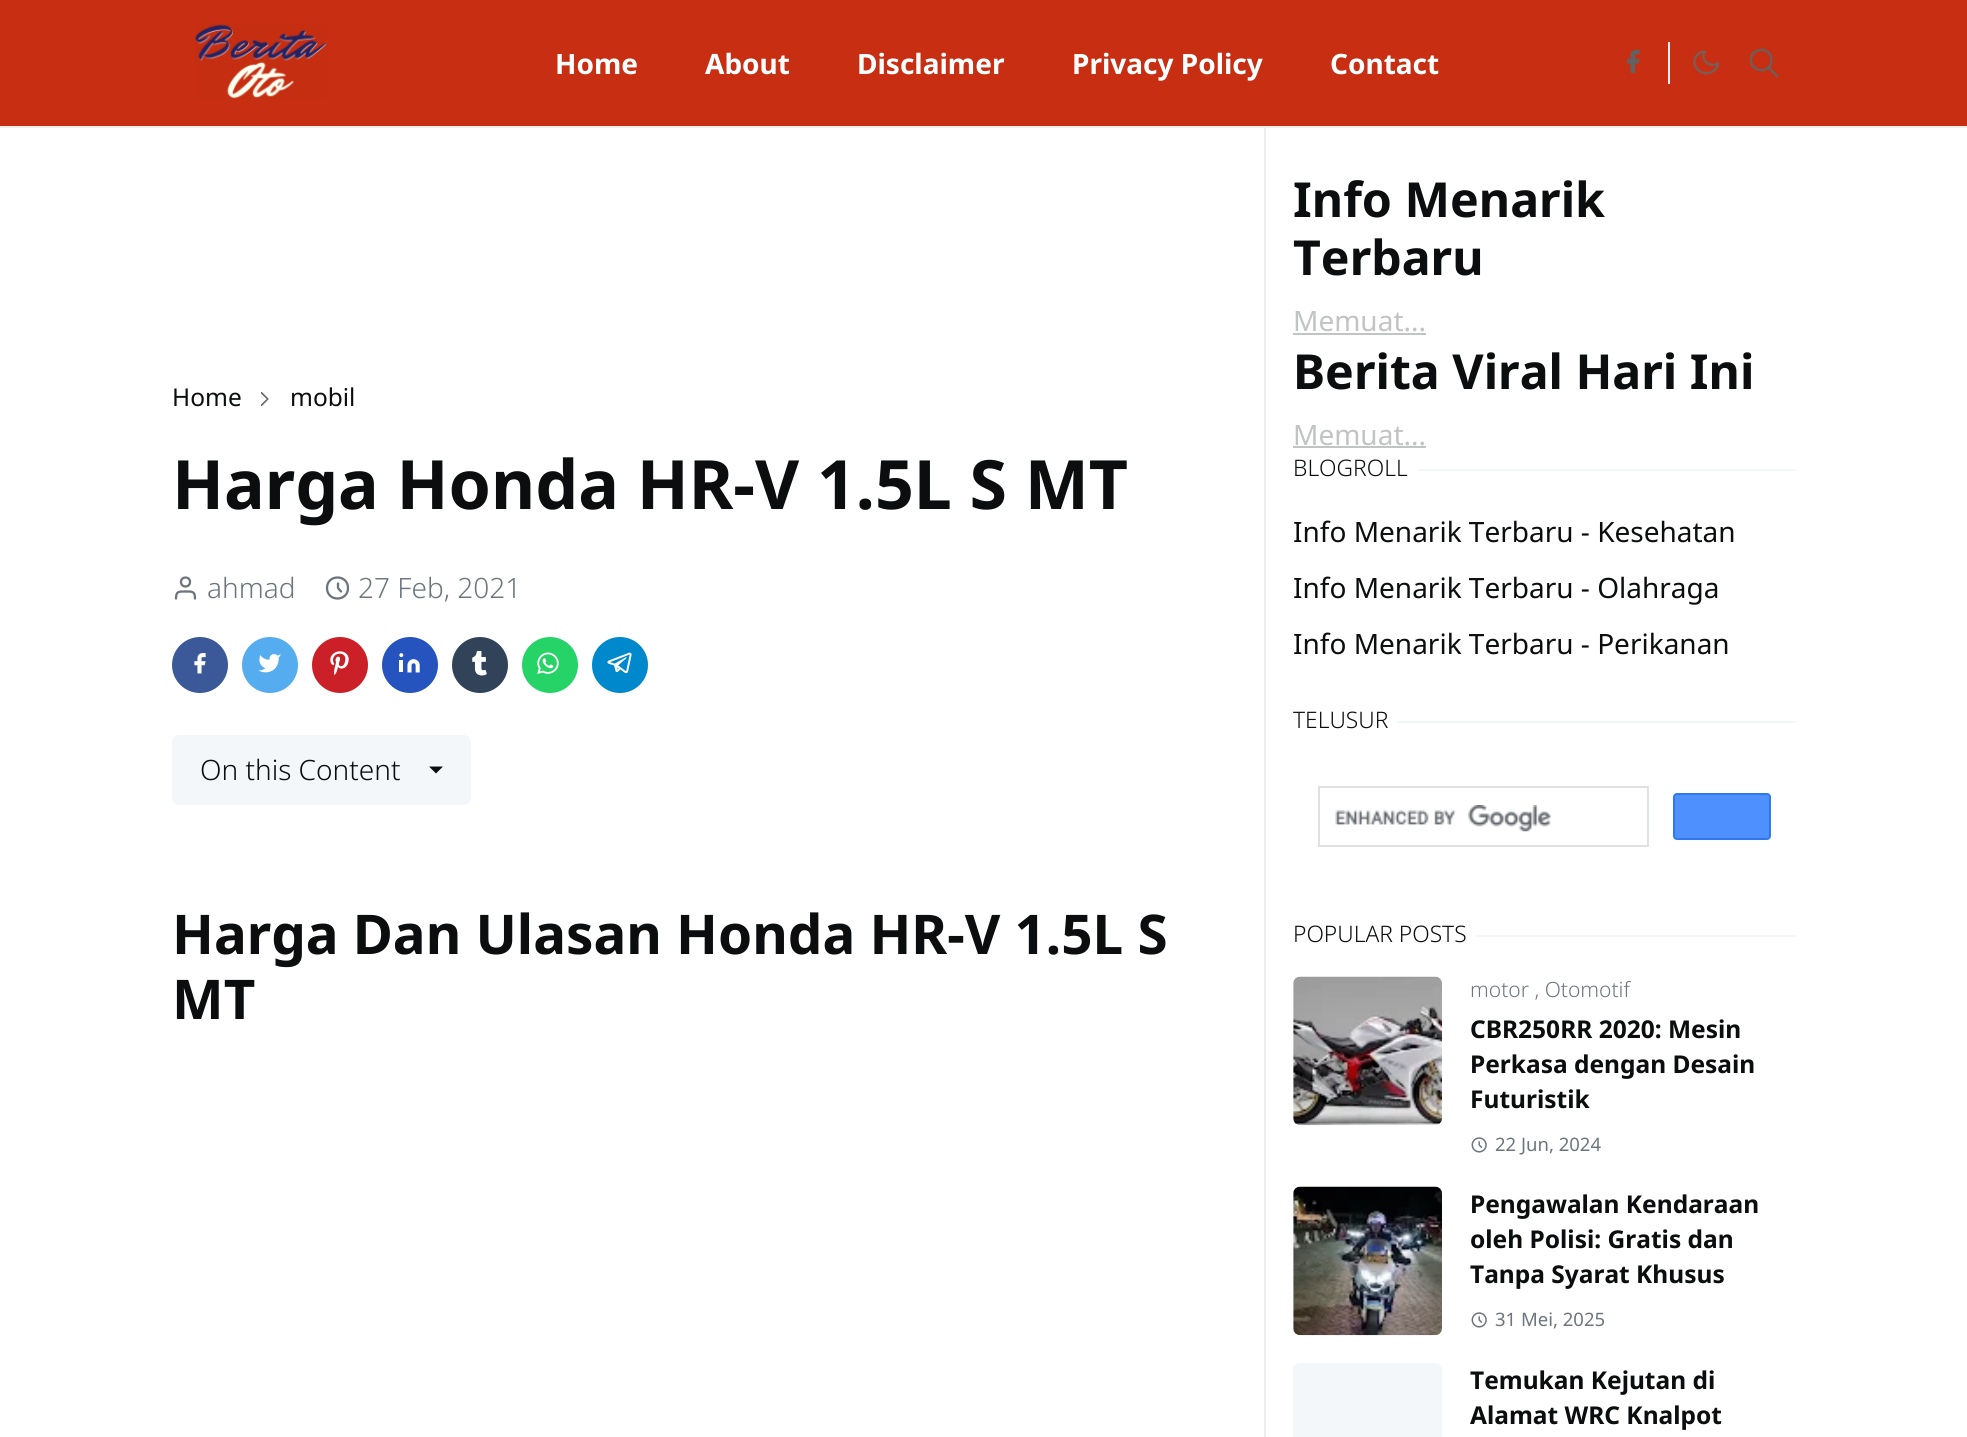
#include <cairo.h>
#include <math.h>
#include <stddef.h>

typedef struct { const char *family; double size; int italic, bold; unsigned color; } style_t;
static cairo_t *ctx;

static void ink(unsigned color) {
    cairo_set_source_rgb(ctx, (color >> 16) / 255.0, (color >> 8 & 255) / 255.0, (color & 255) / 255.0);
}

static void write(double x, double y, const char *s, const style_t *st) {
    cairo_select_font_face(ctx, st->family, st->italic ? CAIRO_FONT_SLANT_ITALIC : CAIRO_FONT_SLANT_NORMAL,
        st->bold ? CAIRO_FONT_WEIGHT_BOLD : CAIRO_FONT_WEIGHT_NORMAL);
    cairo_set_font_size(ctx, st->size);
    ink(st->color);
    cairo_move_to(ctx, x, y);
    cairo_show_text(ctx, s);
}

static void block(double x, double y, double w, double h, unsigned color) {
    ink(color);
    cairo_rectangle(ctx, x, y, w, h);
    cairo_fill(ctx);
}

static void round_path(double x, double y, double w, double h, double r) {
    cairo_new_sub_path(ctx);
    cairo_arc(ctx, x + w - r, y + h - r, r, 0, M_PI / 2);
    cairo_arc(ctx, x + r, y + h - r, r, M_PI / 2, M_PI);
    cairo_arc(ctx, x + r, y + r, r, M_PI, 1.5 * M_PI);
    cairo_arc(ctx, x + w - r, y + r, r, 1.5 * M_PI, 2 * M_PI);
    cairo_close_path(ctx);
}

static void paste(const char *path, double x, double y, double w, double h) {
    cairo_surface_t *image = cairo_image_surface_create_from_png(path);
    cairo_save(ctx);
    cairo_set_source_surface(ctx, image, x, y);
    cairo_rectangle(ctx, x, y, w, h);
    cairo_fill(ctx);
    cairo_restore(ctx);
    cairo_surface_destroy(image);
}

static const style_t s1 = {"Noto Sans", 28, 0, 1, 0xffffff};
static const style_t s2 = {"Noto Sans", 24.5, 0, 0, 0x0b0d0e};
static const style_t s3 = {"Noto Sans", 68, 0, 1, 0x0b0d0e};
static const style_t s4 = {"Noto Sans Light", 28, 0, 0, 0x6c757d};
static const style_t s5 = {"Noto Sans Light", 28, 0, 0, 0x0b0d0e};
static const style_t s6 = {"Noto Sans", 54.75, 0, 1, 0x0b0d0e};
static const style_t s7 = {"Noto Sans", 48.25, 0, 1, 0x0b0d0e};
static const style_t s8 = {"Noto Sans", 28, 0, 0, 0xc2c3c3};
static const style_t s9 = {"Noto Sans Light", 22.75, 0, 0, 0x0b0d0e};
static const style_t s10 = {"Noto Sans", 28, 0, 0, 0x0b0d0e};
static const style_t s11 = {"Noto Sans Light", 21, 0, 0, 0x6c757d};
static const style_t s12 = {"Noto Sans", 24.5, 0, 1, 0x0b0d0e};
static const style_t s13 = {"Noto Sans", 18.5, 0, 0, 0x6c757d};

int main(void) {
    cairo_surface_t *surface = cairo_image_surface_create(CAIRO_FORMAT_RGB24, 1967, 1437);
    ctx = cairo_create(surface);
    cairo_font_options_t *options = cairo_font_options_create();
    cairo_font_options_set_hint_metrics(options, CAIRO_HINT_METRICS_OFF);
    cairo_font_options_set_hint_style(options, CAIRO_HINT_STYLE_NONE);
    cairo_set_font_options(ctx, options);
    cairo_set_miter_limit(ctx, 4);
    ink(0xffffff);
    cairo_paint(ctx);
    block(0, 0, 1967, 126, 0xc82e12);
    block(0, 126, 1967, 2, 0xeeeeee);
    paste("pic1.png", 195, 24, 132, 75);
    write(555, 74, "Home", &s1);
    write(705, 74, "About", &s1);
    write(857, 74, "Disclaimer", &s1);
    write(1072, 74, "Privacy Policy", &s1);
    write(1330, 74, "Contact", &s1);
    block(1668, 42, 2, 42, 0xeeeeee);
    paste("pic2.png", 1626, 49, 14, 24);
    paste("pic3.png", 1693, 51, 27, 24);
    cairo_new_path(ctx);
    cairo_move_to(ctx, 1777, 76);
    cairo_line_to(ctx, 1768.5, 67.5);
    cairo_move_to(ctx, 1771.5, 60);
    cairo_curve_to(ctx, 1771.5, 73.5, 1751, 73.5, 1751, 60);
    cairo_curve_to(ctx, 1751, 46.5, 1771.5, 46.5, 1771.5, 60);
    cairo_close_path(ctx);
    ink(0x626262);
    cairo_set_line_width(ctx, 2.2);
    cairo_set_line_cap(ctx, CAIRO_LINE_CAP_ROUND);
    cairo_set_line_join(ctx, CAIRO_LINE_JOIN_ROUND);
    cairo_stroke(ctx);
    write(172, 406, "Home", &s2);
    paste("pic4.png", 261, 392, 8, 14);
    write(290, 406, "mobil", &s2);
    write(172, 509, "Harga Honda HR-V 1.5L S MT", &s3);
    cairo_new_path(ctx);
    cairo_move_to(ctx, 195, 598.5);
    cairo_curve_to(ctx, 195, 591, 192, 591.5, 185.5, 591.5);
    cairo_curve_to(ctx, 179, 591.5, 176, 591, 176, 598.5);
    ink(0x6c757d);
    cairo_set_line_width(ctx, 2.3);
    cairo_stroke(ctx);
    cairo_arc(ctx, 185.5, 582, 4.5, 0, 2 * M_PI);
    cairo_set_line_cap(ctx, CAIRO_LINE_CAP_BUTT);
    cairo_set_line_join(ctx, CAIRO_LINE_JOIN_MITER);
    cairo_stroke(ctx);
    write(207, 598, "ahmad", &s4);
    cairo_new_path(ctx);
    cairo_move_to(ctx, 338, 583.5);
    cairo_line_to(ctx, 338, 588);
    cairo_line_to(ctx, 341, 591.5);
    cairo_move_to(ctx, 348, 588);
    cairo_curve_to(ctx, 348, 602, 327, 602, 327, 588);
    cairo_curve_to(ctx, 327, 574, 348, 574, 348, 588);
    cairo_close_path(ctx);
    cairo_set_line_cap(ctx, CAIRO_LINE_CAP_ROUND);
    cairo_set_line_join(ctx, CAIRO_LINE_JOIN_ROUND);
    cairo_stroke(ctx);
    write(358, 598, "27 Feb, 2021", &s4);
    ink(0x3b5998);
    cairo_new_path(ctx);
    cairo_arc(ctx, 200, 665, 28, 0, 2 * M_PI);
    cairo_fill(ctx);
    paste("pic5.png", 194, 653, 12, 21);
    ink(0x55acee);
    cairo_arc(ctx, 270, 665, 28, 0, 2 * M_PI);
    cairo_fill(ctx);
    paste("pic6.png", 258, 654, 23, 19);
    ink(0xcb2027);
    cairo_arc(ctx, 340, 665, 28, 0, 2 * M_PI);
    cairo_fill(ctx);
    paste("pic7.png", 330, 651, 19, 25);
    ink(0x2554bf);
    cairo_arc(ctx, 410, 665, 28, 0, 2 * M_PI);
    cairo_fill(ctx);
    paste("pic8.png", 399, 653, 21, 20);
    ink(0x314358);
    cairo_arc(ctx, 480, 665, 28, 0, 2 * M_PI);
    cairo_fill(ctx);
    paste("pic9.png", 472, 651, 15, 25);
    ink(0x25d366);
    cairo_arc(ctx, 550, 665, 28, 0, 2 * M_PI);
    cairo_fill(ctx);
    paste("pic10.png", 537, 652, 22, 22);
    ink(0x0088cc);
    cairo_arc(ctx, 620, 665, 28, 0, 2 * M_PI);
    cairo_fill(ctx);
    paste("pic11.png", 607, 652, 25, 22);
    ink(0xf3f7f9);
    round_path(172, 735, 299, 70, 7);
    cairo_fill(ctx);
    write(200, 780, "On this Content", &s5);
    cairo_new_path(ctx);
    cairo_move_to(ctx, 429, 766.5);
    cairo_line_to(ctx, 443, 766.5);
    cairo_line_to(ctx, 436, 773.5);
    cairo_close_path(ctx);
    cairo_fill(ctx);
    write(172, 954, "Harga Dan Ulasan Honda HR-V 1.5L S", &s6);
    write(172, 1019, "MT", &s6);
    block(1264, 128, 2, 1309, 0xeeeeee);
    write(1293, 217, "Info Menarik", &s7);
    write(1293, 275, "Terbaru", &s7);
    write(1293, 331, "Memuat...", &s8);
    block(1293, 333, 133, 2, 0xc2c3c3);
    write(1293, 389, "Berita Viral Hari Ini", &s7);
    write(1293, 445, "Memuat...", &s8);
    block(1293, 446, 133, 2, 0xc2c3c3);
    write(1293, 476, "BLOGROLL", &s9);
    block(1418, 469, 378, 2, 0xf3f7f9);
    write(1293, 542, "Info Menarik Terbaru - Kesehatan", &s10);
    write(1293, 598, "Info Menarik Terbaru - Olahraga", &s10);
    write(1293, 654, "Info Menarik Terbaru - Perikanan", &s10);
    write(1293, 728, "TELUSUR", &s9);
    block(1397, 721, 399, 2, 0xf3f7f9);
    cairo_rectangle(ctx, 1319, 787, 329, 59);
    ink(0xdfe1e5);
    cairo_set_line_width(ctx, 2);
    cairo_set_line_cap(ctx, CAIRO_LINE_CAP_BUTT);
    cairo_set_line_join(ctx, CAIRO_LINE_JOIN_MITER);
    cairo_stroke(ctx);
    paste("pic12.png", 1335, 805, 216, 27);
    ink(0x4d90fe);
    round_path(1674, 794, 96, 45, 3);
    cairo_fill_preserve(ctx);
    ink(0x3079ed);
    cairo_stroke(ctx);
    write(1293, 942, "POPULAR POSTS", &s9);
    block(1475, 935, 321, 2, 0xf3f7f9);
    round_path(1293, 977, 149, 148, 7);
    cairo_fill(ctx);
    paste("pic13.png", 1293, 976, 149, 150);
    write(1470, 997, "motor , Otomotif", &s11);
    write(1470, 1038, "CBR250RR 2020: Mesin", &s12);
    write(1470, 1073, "Perkasa dengan Desain", &s12);
    write(1470, 1108, "Futuristik", &s12);
    paste("pic14.png", 1471, 1137, 16, 16);
    write(1495, 1151, "22 Jun, 2024", &s13);
    ink(0xf3f7f9);
    round_path(1293, 1187, 149, 148, 7);
    cairo_fill(ctx);
    paste("pic15.png", 1293, 1186, 149, 150);
    write(1470, 1213, "Pengawalan Kendaraan", &s12);
    write(1470, 1248, "oleh Polisi: Gratis dan", &s12);
    write(1470, 1283, "Tanpa Syarat Khusus", &s12);
    paste("pic14.png", 1471, 1312, 16, 16);
    write(1495, 1326, "31 Mei, 2025", &s13);
    ink(0xf3f7f9);
    round_path(1293, 1363, 149, 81, 7);
    cairo_fill(ctx);
    write(1470, 1389, "Temukan Kejutan di", &s12);
    write(1470, 1424, "Alamat WRC Knalpot", &s12);
    cairo_surface_write_to_png(surface, "screenshot.png");
    cairo_font_options_destroy(options);
    cairo_destroy(ctx);
    cairo_surface_destroy(surface);
    return 0;
}
